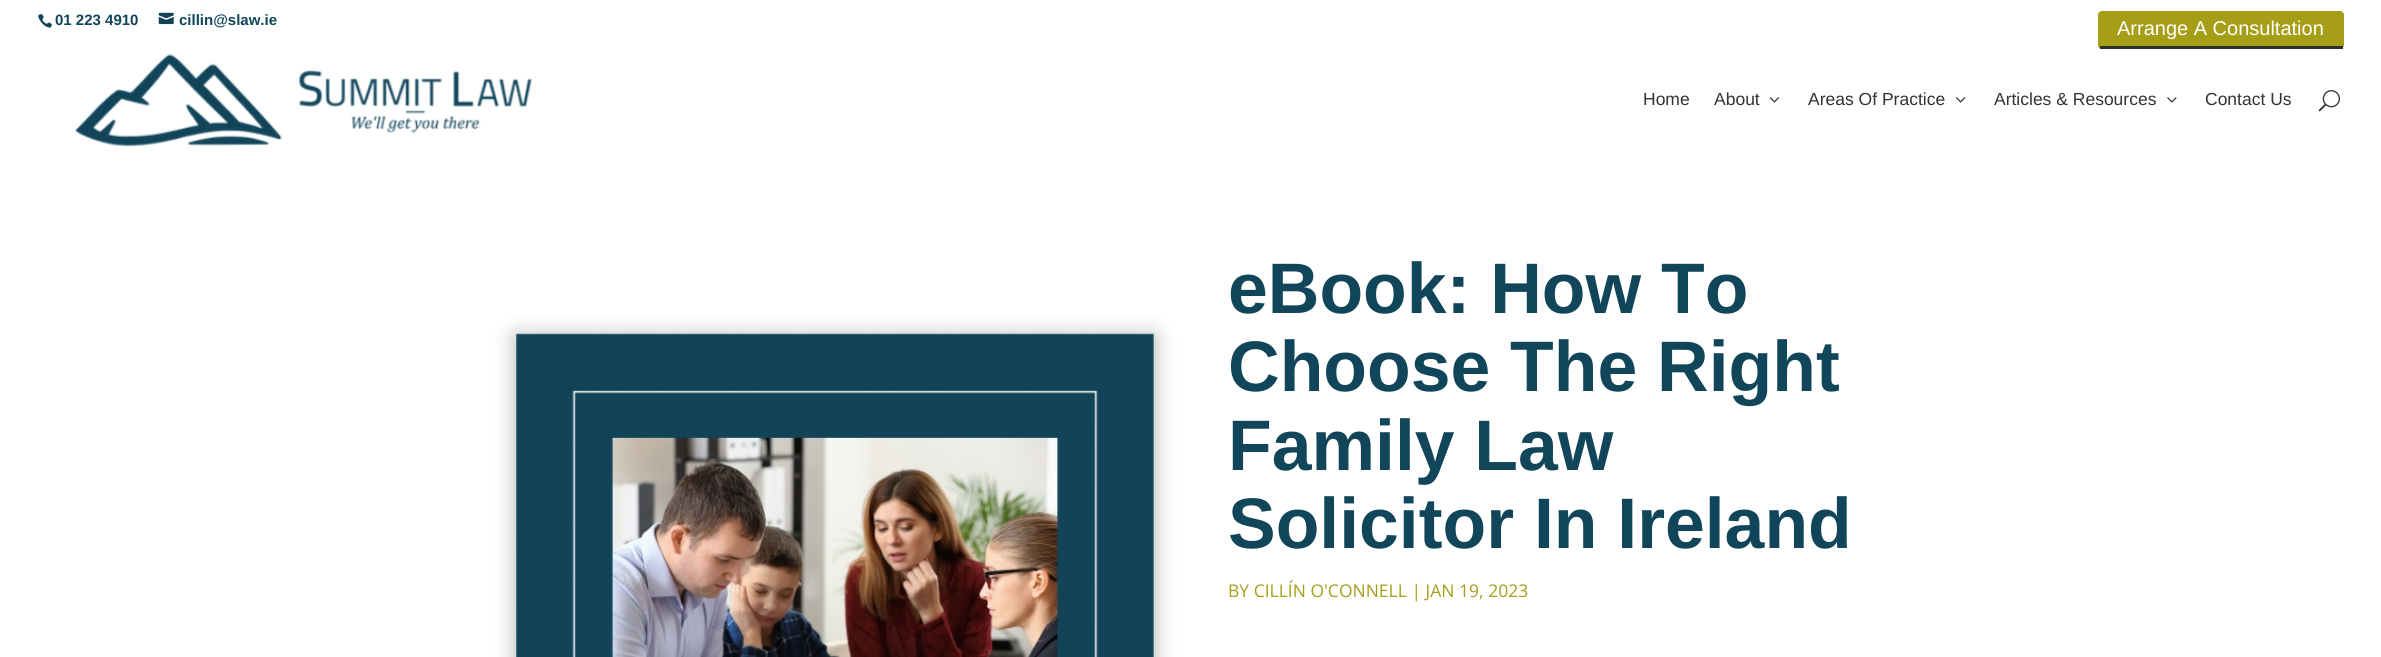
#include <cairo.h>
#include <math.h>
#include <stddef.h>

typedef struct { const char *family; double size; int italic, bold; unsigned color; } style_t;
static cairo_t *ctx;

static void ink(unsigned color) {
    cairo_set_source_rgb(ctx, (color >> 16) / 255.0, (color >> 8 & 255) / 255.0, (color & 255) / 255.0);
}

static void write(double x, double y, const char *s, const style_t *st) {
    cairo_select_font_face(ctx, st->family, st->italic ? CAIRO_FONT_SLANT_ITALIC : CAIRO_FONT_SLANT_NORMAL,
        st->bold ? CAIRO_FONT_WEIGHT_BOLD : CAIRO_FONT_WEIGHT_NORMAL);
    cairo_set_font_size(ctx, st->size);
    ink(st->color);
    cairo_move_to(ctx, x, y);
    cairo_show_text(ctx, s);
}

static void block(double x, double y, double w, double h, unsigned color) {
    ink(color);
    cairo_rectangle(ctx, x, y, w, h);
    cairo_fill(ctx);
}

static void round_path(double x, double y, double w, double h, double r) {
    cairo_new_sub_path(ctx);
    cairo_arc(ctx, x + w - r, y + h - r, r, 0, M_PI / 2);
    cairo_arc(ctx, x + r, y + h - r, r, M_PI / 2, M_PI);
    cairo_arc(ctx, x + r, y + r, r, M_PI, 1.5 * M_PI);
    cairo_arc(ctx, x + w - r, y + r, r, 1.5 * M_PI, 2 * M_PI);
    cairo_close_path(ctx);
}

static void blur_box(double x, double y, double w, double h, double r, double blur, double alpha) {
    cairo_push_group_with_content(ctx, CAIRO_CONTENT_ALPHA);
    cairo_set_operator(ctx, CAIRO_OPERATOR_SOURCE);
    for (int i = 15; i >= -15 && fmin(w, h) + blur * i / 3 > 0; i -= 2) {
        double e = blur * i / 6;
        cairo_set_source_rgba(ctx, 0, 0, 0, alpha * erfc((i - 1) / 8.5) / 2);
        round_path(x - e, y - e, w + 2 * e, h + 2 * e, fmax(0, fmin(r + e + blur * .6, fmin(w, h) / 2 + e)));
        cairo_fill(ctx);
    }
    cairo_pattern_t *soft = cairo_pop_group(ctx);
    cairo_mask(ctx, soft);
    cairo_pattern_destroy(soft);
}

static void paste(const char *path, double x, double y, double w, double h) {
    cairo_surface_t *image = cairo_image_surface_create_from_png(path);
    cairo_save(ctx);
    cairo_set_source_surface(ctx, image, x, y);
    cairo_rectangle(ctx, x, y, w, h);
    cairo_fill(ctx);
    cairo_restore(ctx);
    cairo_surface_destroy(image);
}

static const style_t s1 = {"Liberation Sans", 15, 0, 1, 0x114559};
static const style_t s2 = {"Liberation Sans", 20, 0, 0, 0xffffff};
static const style_t s3 = {"Liberation Sans", 17.5, 0, 0, 0x333333};
static const style_t s4 = {"Liberation Sans", 71.5, 0, 1, 0x114559};
static const style_t s5 = {"Open Sans", 17.5, 0, 0, 0xa59e19};

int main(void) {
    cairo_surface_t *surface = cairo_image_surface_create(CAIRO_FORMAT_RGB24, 2381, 657);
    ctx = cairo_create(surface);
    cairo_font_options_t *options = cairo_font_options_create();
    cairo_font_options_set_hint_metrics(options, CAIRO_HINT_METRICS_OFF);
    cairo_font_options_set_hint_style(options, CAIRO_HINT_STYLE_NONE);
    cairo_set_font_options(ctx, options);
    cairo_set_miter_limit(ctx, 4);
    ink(0xffffff);
    cairo_paint(ctx);
    paste("pic1.png", 38, 14, 14, 14);
    write(55, 25, "01 223 4910", &s1);
    paste("pic2.png", 158, 12, 16, 13);
    write(179, 25, "cillin@slaw.ie", &s1);
    ink(0xa59e16);
    round_path(2098, 11, 246, 38, 4);
    cairo_fill(ctx);
    block(2100, 46, 243, 3, 0x303030);
    write(2117, 35, "Arrange A Consultation", &s2);
    paste("pic3.png", 75, 53, 458, 94);
    write(1643, 105, "Home", &s3);
    write(1714, 105, "About", &s3);
    paste("pic4.png", 1769, 97, 10, 6);
    write(1808, 105, "Areas Of Practice", &s3);
    paste("pic5.png", 1956, 97, 10, 6);
    write(1994, 105, "Articles & Resources", &s3);
    paste("pic6.png", 2167, 97, 10, 6);
    write(2205, 105, "Contact Us", &s3);
    paste("pic7.png", 2318, 90, 22, 22);
    ink(0x000000);
    blur_box(516, 336, 638, 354, 0, 11, 0.3);
    paste("pic8.png", 516, 333, 638, 324);
    write(1228, 313, "eBook: How To", &s4);
    write(1228, 391, "Choose The Right", &s4);
    write(1228, 470, "Family Law", &s4);
    write(1228, 548, "Solicitor In Ireland", &s4);
    write(1228, 597, "BY CILLÍN O'CONNELL | JAN 19, 2023", &s5);
    cairo_surface_write_to_png(surface, "screenshot.png");
    cairo_font_options_destroy(options);
    cairo_destroy(ctx);
    cairo_surface_destroy(surface);
    return 0;
}
